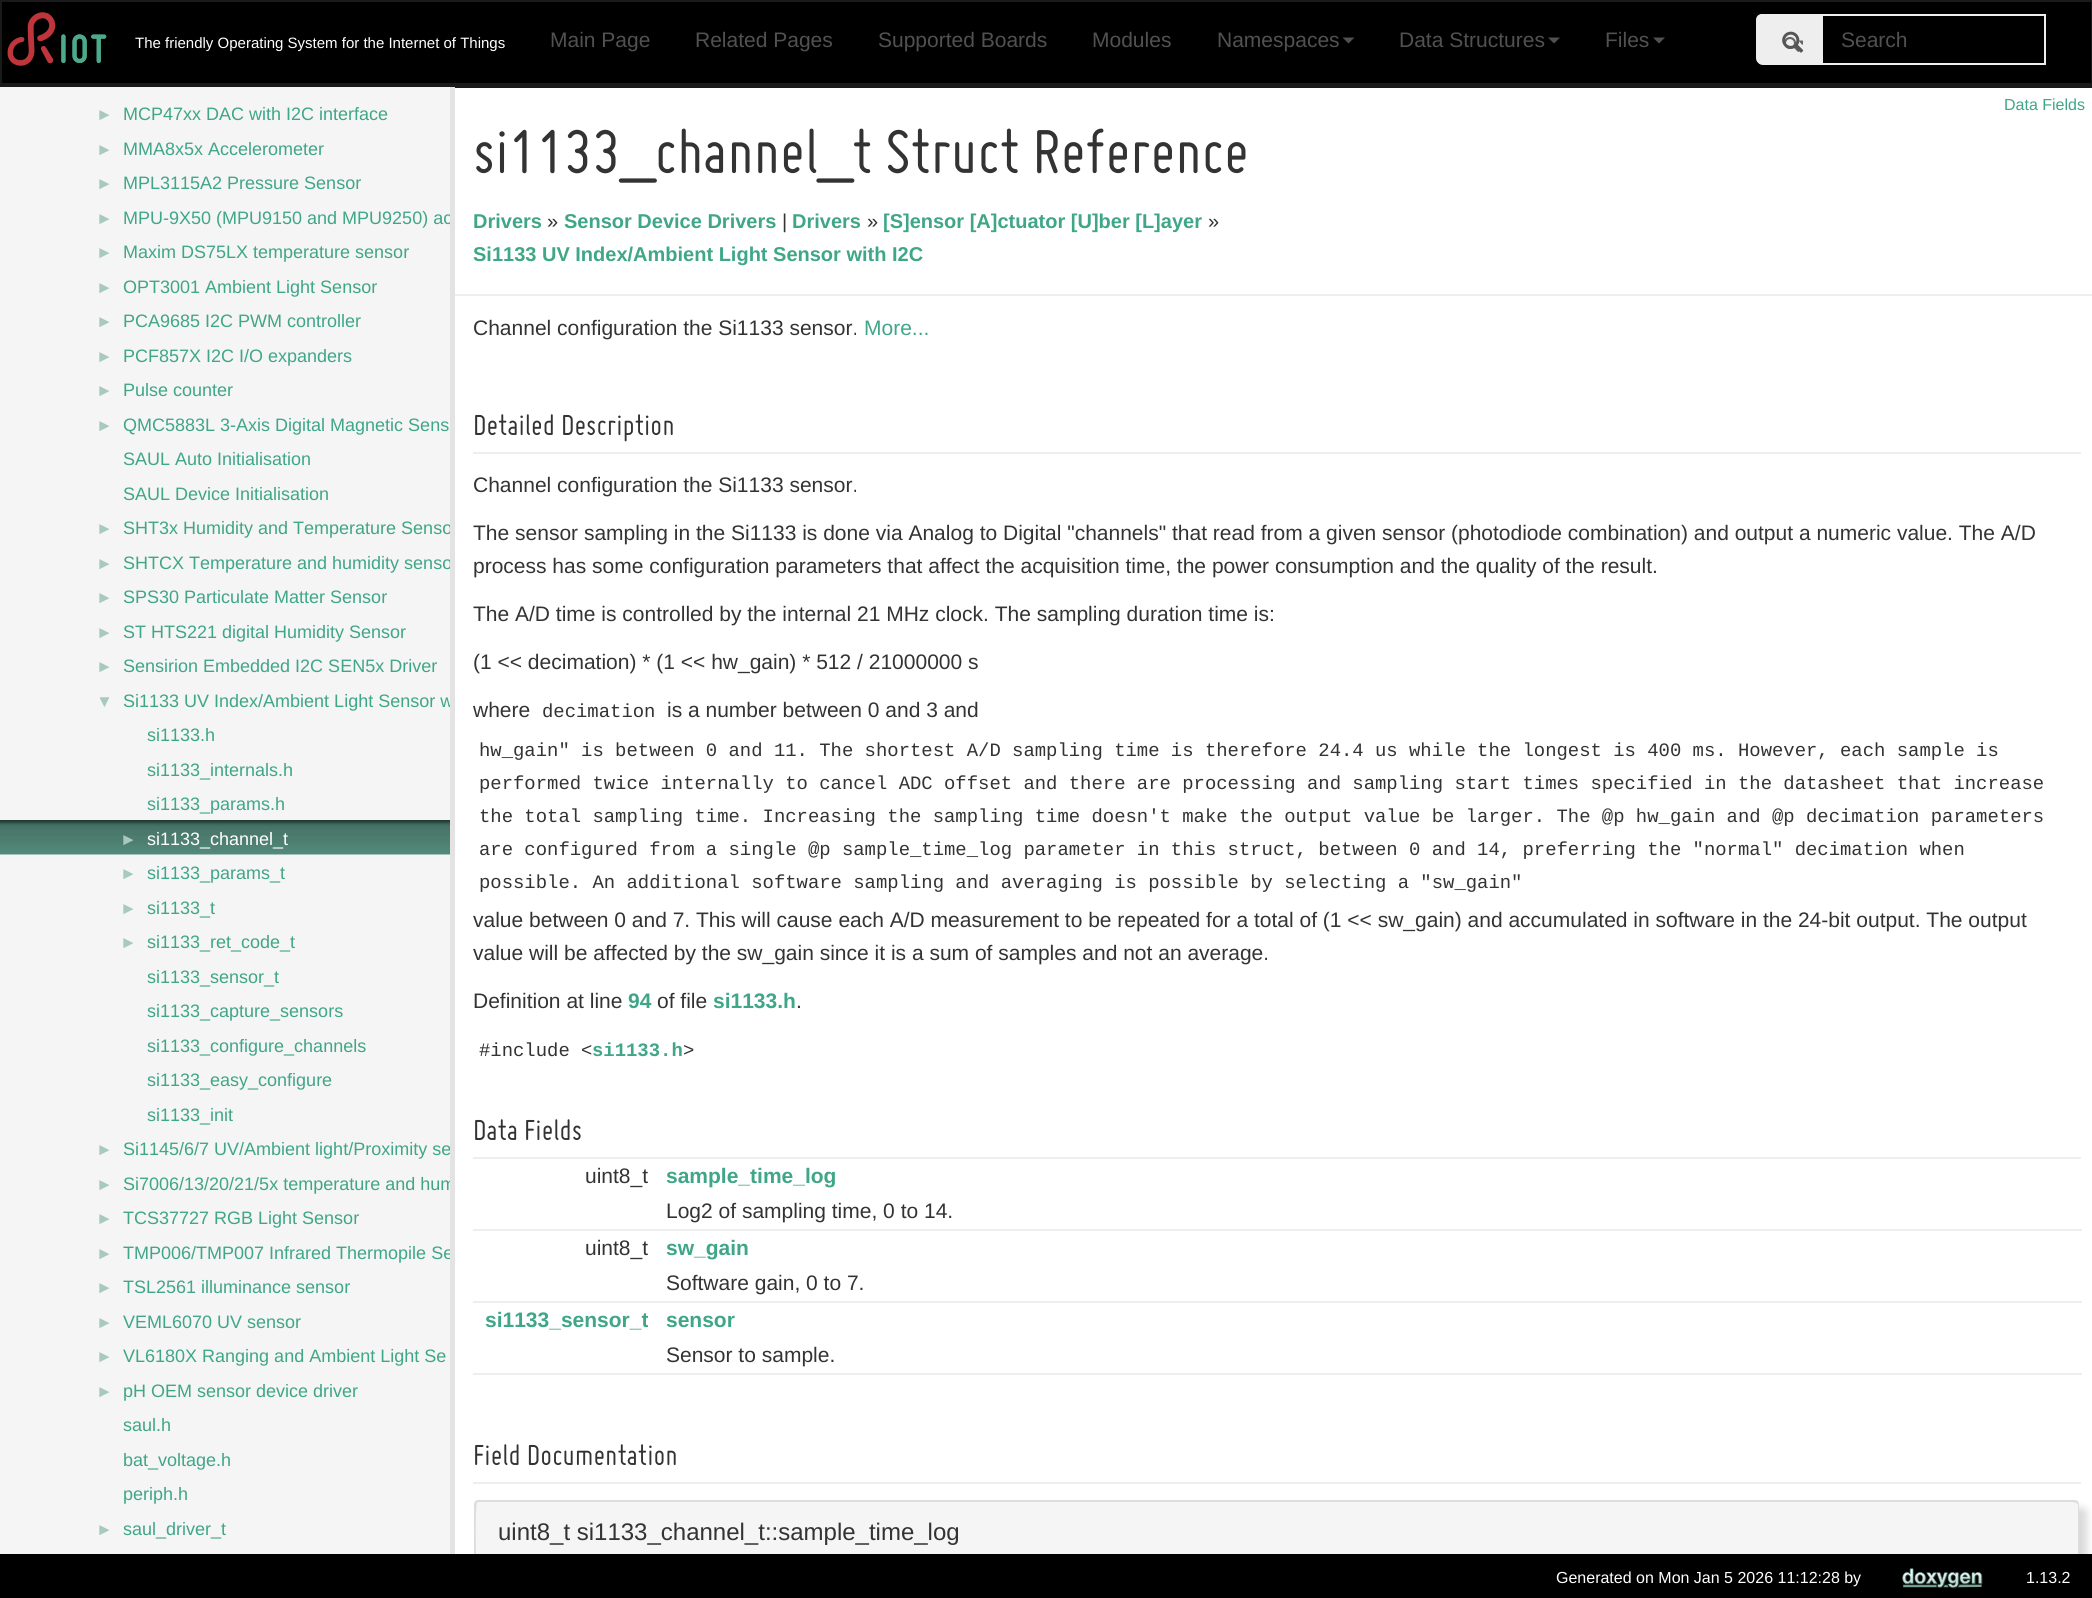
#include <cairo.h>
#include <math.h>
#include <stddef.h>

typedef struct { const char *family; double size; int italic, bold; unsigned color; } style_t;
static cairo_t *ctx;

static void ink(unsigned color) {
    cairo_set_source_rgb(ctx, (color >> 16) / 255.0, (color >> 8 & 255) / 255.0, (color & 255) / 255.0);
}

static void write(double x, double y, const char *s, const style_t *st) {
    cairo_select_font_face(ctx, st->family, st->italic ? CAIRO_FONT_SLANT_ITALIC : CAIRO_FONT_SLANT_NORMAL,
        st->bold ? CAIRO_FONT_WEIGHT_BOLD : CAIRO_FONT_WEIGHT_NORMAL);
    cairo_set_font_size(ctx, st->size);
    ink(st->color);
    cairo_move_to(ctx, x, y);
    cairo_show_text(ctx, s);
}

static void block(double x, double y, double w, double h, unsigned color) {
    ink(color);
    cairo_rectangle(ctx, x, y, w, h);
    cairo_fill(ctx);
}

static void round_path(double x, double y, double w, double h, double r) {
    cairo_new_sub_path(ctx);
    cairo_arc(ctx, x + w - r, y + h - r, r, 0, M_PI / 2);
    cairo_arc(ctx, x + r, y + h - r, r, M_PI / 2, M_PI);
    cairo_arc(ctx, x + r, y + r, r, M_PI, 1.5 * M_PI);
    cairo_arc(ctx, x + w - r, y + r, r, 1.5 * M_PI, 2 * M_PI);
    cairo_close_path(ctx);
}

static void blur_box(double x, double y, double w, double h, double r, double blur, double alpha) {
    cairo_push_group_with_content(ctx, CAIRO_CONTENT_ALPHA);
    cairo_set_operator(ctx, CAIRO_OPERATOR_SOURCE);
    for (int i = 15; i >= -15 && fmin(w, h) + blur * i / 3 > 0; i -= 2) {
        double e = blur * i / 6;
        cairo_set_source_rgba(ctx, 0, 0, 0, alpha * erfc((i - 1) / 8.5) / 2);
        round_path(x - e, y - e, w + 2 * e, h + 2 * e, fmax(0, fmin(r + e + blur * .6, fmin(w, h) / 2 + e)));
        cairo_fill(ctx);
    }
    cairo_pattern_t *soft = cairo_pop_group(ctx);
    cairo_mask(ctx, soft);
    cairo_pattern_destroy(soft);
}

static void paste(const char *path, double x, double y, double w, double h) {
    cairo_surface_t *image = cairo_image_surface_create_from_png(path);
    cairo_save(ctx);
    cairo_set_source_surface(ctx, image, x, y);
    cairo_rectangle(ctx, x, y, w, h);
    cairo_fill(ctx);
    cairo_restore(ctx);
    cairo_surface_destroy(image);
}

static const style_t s1 = {"Liberation Sans", 15, 0, 0, 0xffffff};
static const style_t s2 = {"Liberation Sans", 21, 0, 0, 0x515151};
static const style_t s3 = {"Liberation Sans", 17, 0, 0, 0xa7c9bf};
static const style_t s4 = {"Liberation Sans", 18, 0, 0, 0x3fa687};
static const style_t s5 = {"Liberation Sans", 18, 0, 0, 0xffffff};
static const style_t s6 = {"Liberation Sans", 16, 0, 0, 0x3fa687};
static const style_t s7 = {"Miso", 67.5, 0, 0, 0x333333};
static const style_t s8 = {"Liberation Sans", 20, 0, 1, 0x3fa687};
static const style_t s9 = {"Liberation Sans", 20, 0, 0, 0x333333};
static const style_t s10 = {"Liberation Sans", 21, 0, 0, 0x333333};
static const style_t s11 = {"Liberation Sans", 21, 0, 0, 0x3fa687};
static const style_t s12 = {"Miso", 31.5, 0, 0, 0x333333};
static const style_t s13 = {"Liberation Mono", 18.9, 0, 0, 0x333333};
static const style_t s14 = {"Liberation Sans", 21, 0, 1, 0x3fa687};
static const style_t s15 = {"Liberation Mono", 18.9, 0, 1, 0x3fa687};
static const style_t s16 = {"Liberation Sans", 24, 0, 0, 0x333333};
static const style_t s17 = {"Liberation Sans", 16, 0, 0, 0xffffff};

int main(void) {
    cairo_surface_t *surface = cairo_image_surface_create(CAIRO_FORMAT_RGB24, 2092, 1598);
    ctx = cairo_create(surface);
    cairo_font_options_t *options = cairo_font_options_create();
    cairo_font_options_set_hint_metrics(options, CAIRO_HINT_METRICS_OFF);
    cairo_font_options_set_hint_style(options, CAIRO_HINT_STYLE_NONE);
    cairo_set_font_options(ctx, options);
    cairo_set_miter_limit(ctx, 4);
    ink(0xffffff);
    cairo_paint(ctx);
    block(2, 2, 2089, 81, 0x000000);
    block(0, 0, 2092, 2, 0x1a1a1a);
    block(2091, 0, 1, 87, 0x1a1a1a);
    block(0, 83, 2092, 5, 0x1a1a1a);
    block(0, 0, 2, 87, 0x1a1a1a);
    paste("pic1.png", 7, 12, 100, 54);
    write(135, 48, "The friendly Operating System for the Internet of Things", &s1);
    write(550, 47, "Main Page", &s2);
    write(695, 47, "Related Pages", &s2);
    write(878, 47, "Supported Boards", &s2);
    write(1092, 47, "Modules", &s2);
    write(1217, 47, "Namespaces", &s2);
    cairo_new_path(ctx);
    cairo_move_to(ctx, 1342.5, 37.5);
    cairo_line_to(ctx, 1354.5, 37.5);
    cairo_line_to(ctx, 1348.5, 43.5);
    cairo_close_path(ctx);
    cairo_fill(ctx);
    write(1399, 47, "Data Structures", &s2);
    cairo_new_path(ctx);
    cairo_move_to(ctx, 1548, 37.5);
    cairo_line_to(ctx, 1560, 37.5);
    cairo_line_to(ctx, 1554, 43.5);
    cairo_close_path(ctx);
    cairo_fill(ctx);
    write(1605, 47, "Files", &s2);
    cairo_new_path(ctx);
    cairo_move_to(ctx, 1653, 37.5);
    cairo_line_to(ctx, 1665, 37.5);
    cairo_line_to(ctx, 1659, 43.5);
    cairo_close_path(ctx);
    cairo_fill(ctx);
    ink(0xeeeeee);
    cairo_new_path(ctx);
    cairo_move_to(ctx, 1763, 14);
    cairo_line_to(ctx, 1821, 14);
    cairo_line_to(ctx, 1821, 65);
    cairo_line_to(ctx, 1763, 65);
    cairo_curve_to(ctx, 1759.5, 65, 1757, 62.5, 1757, 59);
    cairo_line_to(ctx, 1757, 20);
    cairo_curve_to(ctx, 1757, 16.5, 1759.5, 14, 1763, 14);
    cairo_close_path(ctx);
    cairo_fill(ctx);
    cairo_set_fill_rule(ctx, CAIRO_FILL_RULE_EVEN_ODD);
    cairo_new_path(ctx);
    cairo_move_to(ctx, 1762, 14);
    cairo_line_to(ctx, 1821, 14);
    cairo_line_to(ctx, 1821, 64);
    cairo_line_to(ctx, 1762, 64);
    cairo_curve_to(ctx, 1759, 64, 1756, 62, 1756, 58);
    cairo_line_to(ctx, 1756, 20);
    cairo_curve_to(ctx, 1756, 16, 1759, 14, 1762, 14);
    cairo_close_path(ctx);
    cairo_move_to(ctx, 1762, 15);
    cairo_line_to(ctx, 1821, 15);
    cairo_line_to(ctx, 1821, 63);
    cairo_line_to(ctx, 1762, 63);
    cairo_curve_to(ctx, 1760, 63, 1758, 61, 1758, 58);
    cairo_line_to(ctx, 1758, 20);
    cairo_curve_to(ctx, 1758, 17, 1760, 15, 1762, 15);
    cairo_close_path(ctx);
    cairo_fill(ctx);
    paste("pic3.png", 1784, 37, 19, 15);
    paste("pic2.png", 1782, 31, 22, 22);
    cairo_rectangle(ctx, 1822, 15, 223, 49);
    cairo_stroke(ctx);
    write(1841, 47, "Search", &s2);
    block(0, 87, 450, 1467, 0xf5f5f5);
    write(96, 120, "►", &s3);
    write(123, 120, "MCP47xx DAC with I2C interface", &s4);
    write(96, 155, "►", &s3);
    write(123, 155, "MMA8x5x Accelerometer", &s4);
    write(96, 189, "►", &s3);
    write(123, 189, "MPL3115A2 Pressure Sensor", &s4);
    write(96, 224, "►", &s3);
    write(123, 224, "MPU-9X50 (MPU9150 and MPU9250) ac", &s4);
    write(96, 258, "►", &s3);
    write(123, 258, "Maxim DS75LX temperature sensor", &s4);
    write(96, 293, "►", &s3);
    write(123, 293, "OPT3001 Ambient Light Sensor", &s4);
    write(96, 327, "►", &s3);
    write(123, 327, "PCA9685 I2C PWM controller", &s4);
    write(96, 362, "►", &s3);
    write(123, 362, "PCF857X I2C I/O expanders", &s4);
    write(96, 396, "►", &s3);
    write(123, 396, "Pulse counter", &s4);
    write(96, 431, "►", &s3);
    write(123, 431, "QMC5883L 3-Axis Digital Magnetic Sens", &s4);
    write(123, 465, "SAUL Auto Initialisation", &s4);
    write(123, 500, "SAUL Device Initialisation", &s4);
    write(96, 534, "►", &s3);
    write(123, 534, "SHT3x Humidity and Temperature Senso", &s4);
    write(96, 569, "►", &s3);
    write(123, 569, "SHTCX Temperature and humidity senso", &s4);
    write(96, 603, "►", &s3);
    write(123, 603, "SPS30 Particulate Matter Sensor", &s4);
    write(96, 638, "►", &s3);
    write(123, 638, "ST HTS221 digital Humidity Sensor", &s4);
    write(96, 672, "►", &s3);
    write(123, 672, "Sensirion Embedded I2C SEN5x Driver", &s4);
    write(96, 707, "▼", &s3);
    write(123, 707, "Si1133 UV Index/Ambient Light Sensor w", &s4);
    write(147, 741, "si1133.h", &s4);
    write(147, 776, "si1133_internals.h", &s4);
    write(147, 810, "si1133_params.h", &s4);
    paste("pic4.png", 0, 820, 450, 35);
    write(120, 845, "►", &s3);
    write(147, 845, "si1133_channel_t", &s5);
    write(120, 879, "►", &s3);
    write(147, 879, "si1133_params_t", &s4);
    write(120, 914, "►", &s3);
    write(147, 914, "si1133_t", &s4);
    write(120, 948, "►", &s3);
    write(147, 948, "si1133_ret_code_t", &s4);
    write(147, 983, "si1133_sensor_t", &s4);
    write(147, 1017, "si1133_capture_sensors", &s4);
    write(147, 1052, "si1133_configure_channels", &s4);
    write(147, 1086, "si1133_easy_configure", &s4);
    write(147, 1121, "si1133_init", &s4);
    write(96, 1155, "►", &s3);
    write(123, 1155, "Si1145/6/7 UV/Ambient light/Proximity se", &s4);
    write(96, 1190, "►", &s3);
    write(123, 1190, "Si7006/13/20/21/5x temperature and hum", &s4);
    write(96, 1224, "►", &s3);
    write(123, 1224, "TCS37727 RGB Light Sensor", &s4);
    write(96, 1259, "►", &s3);
    write(123, 1259, "TMP006/TMP007 Infrared Thermopile Se", &s4);
    write(96, 1293, "►", &s3);
    write(123, 1293, "TSL2561 illuminance sensor", &s4);
    write(96, 1328, "►", &s3);
    write(123, 1328, "VEML6070 UV sensor", &s4);
    write(96, 1362, "►", &s3);
    write(123, 1362, "VL6180X Ranging and Ambient Light Se", &s4);
    write(96, 1397, "►", &s3);
    write(123, 1397, "pH OEM sensor device driver", &s4);
    write(123, 1431, "saul.h", &s4);
    write(123, 1466, "bat_voltage.h", &s4);
    write(123, 1500, "periph.h", &s4);
    write(96, 1535, "►", &s3);
    write(123, 1535, "saul_driver_t", &s4);
    block(450, 87, 5, 1467, 0xe3e3e3);
    block(455, 294, 1637, 2, 0xeeeeee);
    write(2004, 110, "Data Fields", &s6);
    write(473, 173, "si1133_channel_t Struct Reference", &s7);
    write(473, 228, "Drivers", &s8);
    write(547, 228, "»", &s9);
    write(564, 228, "Sensor Device Drivers", &s8);
    write(782, 228, "|", &s9);
    write(792, 228, "Drivers", &s8);
    write(867, 228, "»", &s9);
    write(883, 228, "[S]ensor [A]ctuator [U]ber [L]ayer", &s8);
    write(1208, 228, "»", &s9);
    write(473, 261, "Si1133 UV Index/Ambient Light Sensor with I2C", &s8);
    write(473, 335, "Channel configuration the Si1133 sensor.", &s10);
    write(864, 335, "More...", &s11);
    block(473, 452, 1608, 2, 0xeeeeee);
    write(473, 435, "Detailed Description", &s12);
    write(473, 492, "Channel configuration the Si1133 sensor.", &s10);
    write(473, 540, "The sensor sampling in the Si1133 is done via Analog to Digital \"channels\" that read from a given sensor (photodiode combination) and output a numeric value. The A/D", &s10);
    write(473, 573, "process has some configuration parameters that affect the acquisition time, the power consumption and the quality of the result.", &s10);
    write(473, 621, "The A/D time is controlled by the internal 21 MHz clock. The sampling duration time is:", &s10);
    write(473, 669, "(1 << decimation) * (1 << hw_gain) * 512 / 21000000 s", &s10);
    write(473, 717, "where", &s10);
    write(542, 717, "decimation", &s13);
    write(667, 717, "is a number between 0 and 3 and", &s10);
    write(479, 756, "hw_gain\" is between 0 and 11. The shortest A/D sampling time is therefore 24.4 us while the longest is 400 ms. However, each sample is", &s13);
    write(479, 789, "performed twice internally to cancel ADC offset and there are processing and sampling start times specified in the datasheet that increase", &s13);
    write(479, 822, "the total sampling time. Increasing the sampling time doesn't make the output value be larger. The @p hw_gain and @p decimation parameters", &s13);
    write(479, 855, "are configured from a single @p sample_time_log parameter in this struct, between 0 and 14, preferring the \"normal\" decimation when", &s13);
    write(479, 888, "possible. An additional software sampling and averaging is possible by selecting a \"sw_gain\"", &s13);
    write(473, 927, "value between 0 and 7. This will cause each A/D measurement to be repeated for a total of (1 << sw_gain) and accumulated in software in the 24-bit output. The output", &s10);
    write(473, 960, "value will be affected by the sw_gain since it is a sum of samples and not an average.", &s10);
    write(473, 1008, "Definition at line", &s10);
    write(628, 1008, "94", &s14);
    write(657, 1008, "of file", &s10);
    write(713, 1008, "si1133.h", &s14);
    write(796, 1008, ".", &s10);
    write(479, 1056, "#include <", &s13);
    write(592, 1056, "si1133.h", &s15);
    write(683, 1056, ">", &s13);
    block(473, 1157, 1608, 2, 0xeeeeee);
    write(473, 1140, "Data Fields", &s12);
    write(585, 1183, "uint8_t", &s10);
    write(666, 1183, "sample_time_log", &s14);
    write(666, 1218, "Log2 of sampling time, 0 to 14.", &s10);
    block(473, 1229, 1609, 2, 0xeeeeee);
    write(585, 1255, "uint8_t", &s10);
    write(666, 1255, "sw_gain", &s14);
    write(666, 1290, "Software gain, 0 to 7.", &s10);
    block(473, 1301, 1609, 2, 0xeeeeee);
    write(485, 1327, "si1133_sensor_t", &s14);
    write(666, 1327, "sensor", &s14);
    write(666, 1362, "Sensor to sample.", &s10);
    block(473, 1373, 1609, 2, 0xeeeeee);
    block(473, 1482, 1608, 2, 0xeeeeee);
    write(473, 1465, "Field Documentation", &s12);
    ink(0x000000);
    blur_box(482, 1508, 1605, 66, 5, 4, 0.15);
    ink(0xf5f5f5);
    cairo_new_path(ctx);
    cairo_move_to(ctx, 479, 1500);
    cairo_line_to(ctx, 2074, 1500);
    cairo_curve_to(ctx, 2077, 1500, 2079, 1502, 2079, 1505);
    cairo_line_to(ctx, 2079, 1554);
    cairo_line_to(ctx, 474, 1554);
    cairo_line_to(ctx, 474, 1505);
    cairo_curve_to(ctx, 474, 1502, 476, 1500, 479, 1500);
    cairo_close_path(ctx);
    cairo_fill(ctx);
    ink(0xdddddd);
    cairo_set_fill_rule(ctx, CAIRO_FILL_RULE_WINDING);
    cairo_new_path(ctx);
    cairo_move_to(ctx, 478, 1500);
    cairo_line_to(ctx, 475, 1501);
    cairo_line_to(ctx, 477, 1503);
    cairo_line_to(ctx, 478, 1502);
    cairo_line_to(ctx, 2074, 1502);
    cairo_line_to(ctx, 2076, 1503);
    cairo_line_to(ctx, 2078, 1501);
    cairo_curve_to(ctx, 2077, 1501, 2076, 1500, 2074, 1500);
    cairo_close_path(ctx);
    cairo_fill(ctx);
    cairo_new_path(ctx);
    cairo_move_to(ctx, 2079, 1566);
    cairo_line_to(ctx, 2079, 1504);
    cairo_line_to(ctx, 2078, 1501);
    cairo_line_to(ctx, 2076, 1503);
    cairo_line_to(ctx, 2078, 1504);
    cairo_line_to(ctx, 2078, 1564);
    cairo_line_to(ctx, 2077, 1564);
    cairo_close_path(ctx);
    cairo_fill(ctx);
    cairo_new_path(ctx);
    cairo_move_to(ctx, 474, 1566);
    cairo_line_to(ctx, 476, 1564);
    cairo_curve_to(ctx, 476, 1557, 475, 1504, 477, 1503);
    cairo_line_to(ctx, 475, 1501);
    cairo_line_to(ctx, 474, 1504);
    cairo_close_path(ctx);
    cairo_fill(ctx);
    write(498, 1540, "uint8_t si1133_channel_t::sample_time_log", &s16);
    block(0, 1554, 2092, 44, 0x000000);
    write(1556, 1583, "Generated on Mon Jan 5 2026 11:12:28 by", &s17);
    paste("pic5.png", 1902, 1568, 81, 21);
    write(2026, 1583, "1.13.2", &s17);
    cairo_surface_write_to_png(surface, "screenshot.png");
    cairo_font_options_destroy(options);
    cairo_destroy(ctx);
    cairo_surface_destroy(surface);
    return 0;
}
